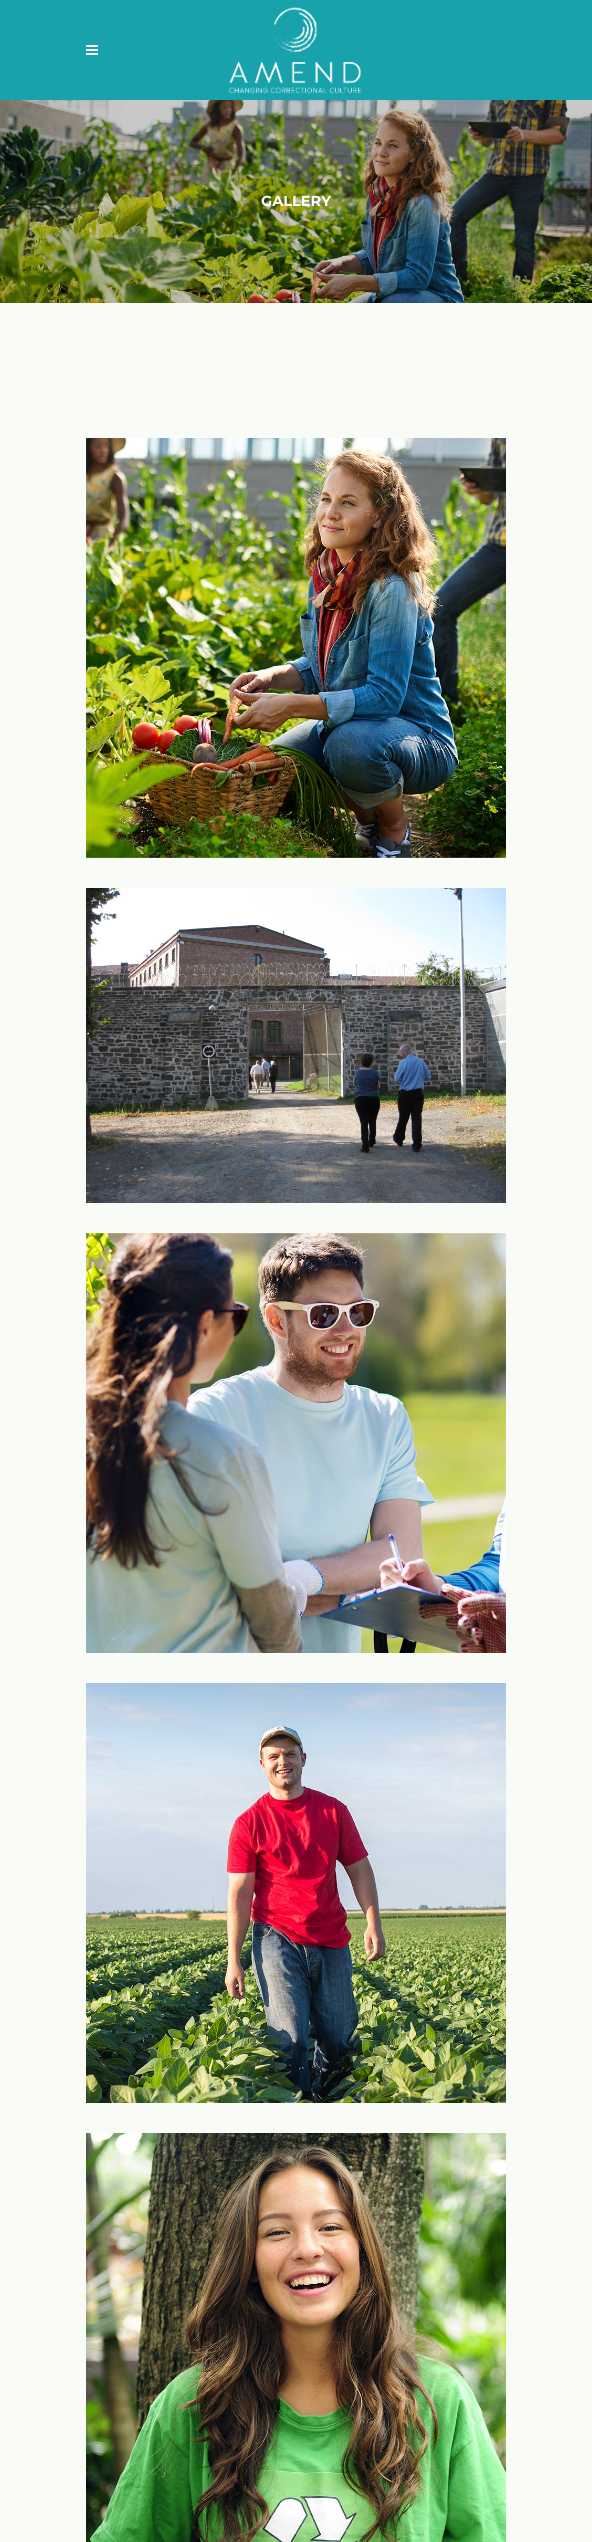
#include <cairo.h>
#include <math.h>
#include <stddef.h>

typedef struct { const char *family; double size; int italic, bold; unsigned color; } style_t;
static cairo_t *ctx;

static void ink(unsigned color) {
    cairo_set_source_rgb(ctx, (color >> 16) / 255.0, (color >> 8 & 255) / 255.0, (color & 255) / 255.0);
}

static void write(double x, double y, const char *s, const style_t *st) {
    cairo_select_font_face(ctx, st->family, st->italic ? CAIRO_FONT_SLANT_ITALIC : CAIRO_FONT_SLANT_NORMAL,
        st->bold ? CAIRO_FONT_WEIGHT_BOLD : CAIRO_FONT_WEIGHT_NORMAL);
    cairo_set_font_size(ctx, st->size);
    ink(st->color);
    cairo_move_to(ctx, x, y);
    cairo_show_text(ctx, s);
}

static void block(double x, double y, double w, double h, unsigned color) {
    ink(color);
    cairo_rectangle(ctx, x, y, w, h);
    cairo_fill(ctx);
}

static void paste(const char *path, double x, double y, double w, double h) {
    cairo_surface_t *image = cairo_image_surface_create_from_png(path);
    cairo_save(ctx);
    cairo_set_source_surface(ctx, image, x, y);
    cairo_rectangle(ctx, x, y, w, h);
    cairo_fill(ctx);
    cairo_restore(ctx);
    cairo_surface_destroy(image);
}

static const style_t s1 = {"Montserrat", 14.5, 0, 1, 0xffffff};

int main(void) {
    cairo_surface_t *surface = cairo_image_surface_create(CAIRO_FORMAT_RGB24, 592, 2542);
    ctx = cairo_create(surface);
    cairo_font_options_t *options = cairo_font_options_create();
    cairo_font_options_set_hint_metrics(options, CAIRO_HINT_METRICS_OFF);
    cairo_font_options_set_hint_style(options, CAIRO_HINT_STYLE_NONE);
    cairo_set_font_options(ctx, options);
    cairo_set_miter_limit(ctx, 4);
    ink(0xf9fbf7);
    cairo_paint(ctx);
    block(0, 0, 592, 100, 0x18a3ac);
    paste("pic1.png", 86, 45, 12, 10);
    paste("pic2.png", 228, 7, 134, 87);
    paste("pic3.png", 0, 100, 592, 203);
    write(261, 206, "GALLERY", &s1);
    paste("pic4.png", 86, 438, 420, 420);
    paste("pic5.png", 86, 888, 420, 315);
    paste("pic6.png", 86, 1233, 420, 420);
    paste("pic7.png", 86, 1683, 420, 420);
    paste("pic8.png", 86, 2133, 420, 409);
    cairo_surface_write_to_png(surface, "screenshot.png");
    cairo_font_options_destroy(options);
    cairo_destroy(ctx);
    cairo_surface_destroy(surface);
    return 0;
}
